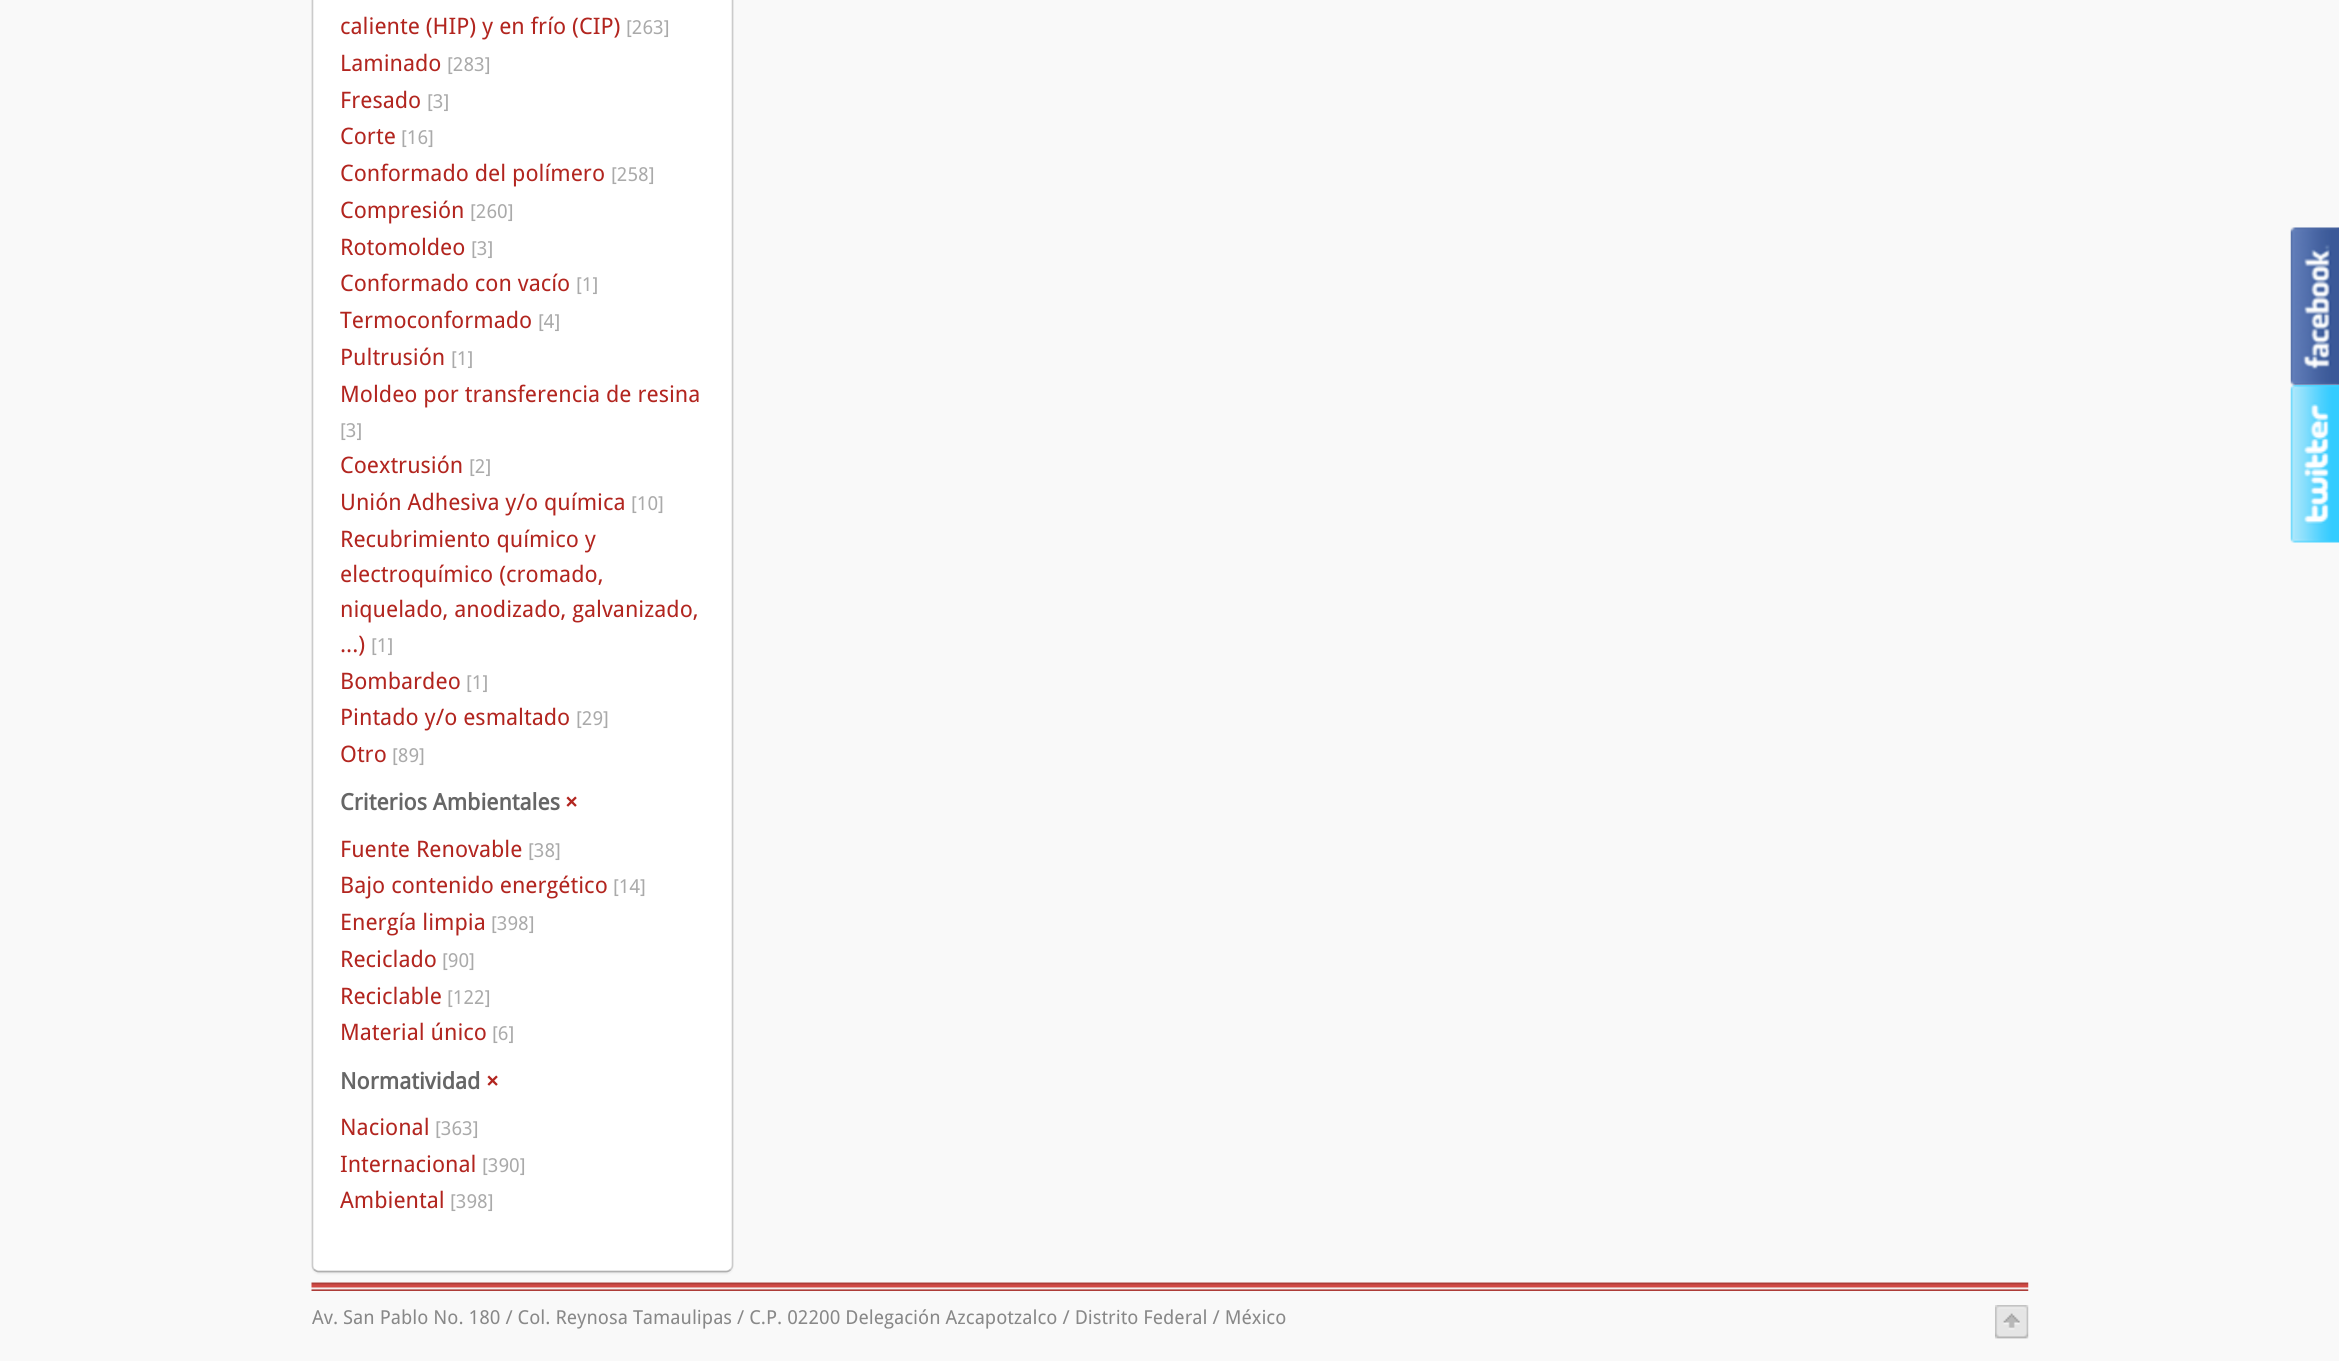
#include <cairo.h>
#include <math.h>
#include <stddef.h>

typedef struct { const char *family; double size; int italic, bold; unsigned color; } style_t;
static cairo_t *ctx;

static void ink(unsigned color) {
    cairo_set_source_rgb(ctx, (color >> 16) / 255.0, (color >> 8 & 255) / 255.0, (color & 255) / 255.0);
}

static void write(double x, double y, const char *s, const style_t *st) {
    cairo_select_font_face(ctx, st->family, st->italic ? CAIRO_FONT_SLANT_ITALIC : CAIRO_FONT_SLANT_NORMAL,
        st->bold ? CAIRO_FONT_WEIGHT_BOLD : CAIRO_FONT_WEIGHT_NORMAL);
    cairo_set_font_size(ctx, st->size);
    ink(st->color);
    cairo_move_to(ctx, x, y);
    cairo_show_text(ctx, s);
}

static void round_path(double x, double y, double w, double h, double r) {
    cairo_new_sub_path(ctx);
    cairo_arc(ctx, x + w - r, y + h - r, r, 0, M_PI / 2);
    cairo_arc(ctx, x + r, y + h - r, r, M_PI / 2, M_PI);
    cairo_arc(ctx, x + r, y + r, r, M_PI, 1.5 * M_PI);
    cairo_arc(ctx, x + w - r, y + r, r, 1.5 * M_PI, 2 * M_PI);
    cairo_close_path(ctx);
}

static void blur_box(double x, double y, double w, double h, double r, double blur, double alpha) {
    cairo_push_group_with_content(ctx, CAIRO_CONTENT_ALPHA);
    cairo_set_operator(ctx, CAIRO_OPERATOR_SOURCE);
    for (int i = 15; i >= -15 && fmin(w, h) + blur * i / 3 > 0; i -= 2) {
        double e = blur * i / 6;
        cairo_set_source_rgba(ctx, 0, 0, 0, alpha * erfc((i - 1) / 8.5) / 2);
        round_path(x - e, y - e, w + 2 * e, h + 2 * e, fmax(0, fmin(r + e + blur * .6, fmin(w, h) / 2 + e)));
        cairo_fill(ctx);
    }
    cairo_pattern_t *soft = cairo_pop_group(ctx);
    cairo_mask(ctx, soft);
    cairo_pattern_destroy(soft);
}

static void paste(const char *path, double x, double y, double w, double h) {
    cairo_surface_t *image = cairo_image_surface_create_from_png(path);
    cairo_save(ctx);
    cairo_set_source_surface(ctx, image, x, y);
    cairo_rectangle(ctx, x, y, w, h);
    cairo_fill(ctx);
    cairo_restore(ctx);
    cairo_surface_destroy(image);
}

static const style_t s1 = {"Droid Sans", 22.75, 0, 0, 0xb2251f};
static const style_t s2 = {"Droid Sans", 19.25, 0, 0, 0xaaaaaa};
static const style_t s3 = {"Droid Sans", 22.75, 0, 1, 0x666666};
static const style_t s4 = {"Droid Sans", 22.75, 0, 1, 0xb2251f};
static const style_t s5 = {"Droid Sans", 19.25, 0, 0, 0x888888};

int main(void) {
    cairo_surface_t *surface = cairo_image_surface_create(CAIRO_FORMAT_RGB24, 2339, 1361);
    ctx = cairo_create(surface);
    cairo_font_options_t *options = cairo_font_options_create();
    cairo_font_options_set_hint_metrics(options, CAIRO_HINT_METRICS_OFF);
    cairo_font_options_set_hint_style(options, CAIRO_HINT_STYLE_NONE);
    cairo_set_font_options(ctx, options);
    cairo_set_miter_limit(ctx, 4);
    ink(0xf9f9f9);
    cairo_paint(ctx);
    ink(0x000000);
    blur_box(312, -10, 421, 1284, 7, 1, 0.06);
    ink(0xffffff);
    round_path(313, -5, 419, 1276, 5);
    cairo_fill(ctx);
    cairo_new_path(ctx);
    cairo_move_to(ctx, 730.5, 1269.5);
    cairo_curve_to(ctx, 729.5, 1270.5, 728, 1271.5, 726, 1271.5);
    cairo_line_to(ctx, 318.5, 1271.5);
    cairo_curve_to(ctx, 317, 1271.5, 315.5, 1270.5, 314, 1269.5);
    cairo_set_source_rgba(ctx, 0, 0, 0, 0.25);
    cairo_set_line_width(ctx, 1.8);
    cairo_stroke(ctx);
    cairo_new_path(ctx);
    cairo_move_to(ctx, 314, 1269.5);
    cairo_curve_to(ctx, 313, 1268.5, 312.5, 1267, 312.5, 1265);
    cairo_line_to(ctx, 312.5, -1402);
    cairo_curve_to(ctx, 312.5, -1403.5, 313, -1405, 314, -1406);
    cairo_curve_to(ctx, 315.5, -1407, 317, -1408, 318.5, -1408);
    cairo_line_to(ctx, 726, -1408);
    cairo_curve_to(ctx, 728, -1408, 729.5, -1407, 730.5, -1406);
    cairo_curve_to(ctx, 731.5, -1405, 732.5, -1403.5, 732.5, -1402);
    cairo_line_to(ctx, 732.5, 1265);
    cairo_curve_to(ctx, 732.5, 1267, 731.5, 1268.5, 730.5, 1269.5);
    cairo_set_source_rgba(ctx, 0, 0, 0, 0.15);
    cairo_stroke(ctx);
    write(340, 34, "caliente (HIP) y en frío (CIP)", &s1);
    write(626, 34, "[263]", &s2);
    write(340, 71, "Laminado", &s1);
    write(447, 71, "[283]", &s2);
    write(340, 108, "Fresado", &s1);
    write(427, 108, "[3]", &s2);
    write(340, 144, "Corte", &s1);
    write(401, 144, "[16]", &s2);
    write(340, 181, "Conformado del polímero", &s1);
    write(611, 181, "[258]", &s2);
    write(340, 218, "Compresión", &s1);
    write(470, 218, "[260]", &s2);
    write(340, 255, "Rotomoldeo", &s1);
    write(471, 255, "[3]", &s2);
    write(340, 291, "Conformado con vacío", &s1);
    write(576, 291, "[1]", &s2);
    write(340, 328, "Termoconformado", &s1);
    write(538, 328, "[4]", &s2);
    write(340, 365, "Pultrusión", &s1);
    write(451, 365, "[1]", &s2);
    write(340, 402, "Moldeo por transferencia de resina", &s1);
    write(340, 437, "[3]", &s2);
    write(340, 473, "Coextrusión", &s1);
    write(469, 473, "[2]", &s2);
    write(340, 510, "Unión Adhesiva y/o química", &s1);
    write(631, 510, "[10]", &s2);
    write(340, 547, "Recubrimiento químico y", &s1);
    write(340, 582, "electroquímico (cromado,", &s1);
    write(340, 617, "niquelado, anodizado, galvanizado,", &s1);
    write(340, 652, "...)", &s1);
    write(371, 652, "[1]", &s2);
    write(340, 689, "Bombardeo", &s1);
    write(466, 689, "[1]", &s2);
    write(340, 725, "Pintado y/o esmaltado", &s1);
    write(576, 725, "[29]", &s2);
    write(340, 762, "Otro", &s1);
    write(392, 762, "[89]", &s2);
    write(340, 810, "Criterios Ambientales", &s3);
    write(565, 810, "×", &s4);
    write(340, 857, "Fuente Renovable", &s1);
    write(528, 857, "[38]", &s2);
    write(340, 893, "Bajo contenido energético", &s1);
    write(613, 893, "[14]", &s2);
    write(340, 930, "Energía limpia", &s1);
    write(491, 930, "[398]", &s2);
    write(340, 967, "Reciclado", &s1);
    write(442, 967, "[90]", &s2);
    write(340, 1004, "Reciclable", &s1);
    write(447, 1004, "[122]", &s2);
    write(340, 1040, "Material único", &s1);
    write(492, 1040, "[6]", &s2);
    write(340, 1089, "Normatividad", &s3);
    write(486, 1089, "×", &s4);
    write(340, 1135, "Nacional", &s1);
    write(435, 1135, "[363]", &s2);
    write(340, 1172, "Internacional", &s1);
    write(482, 1172, "[390]", &s2);
    write(340, 1208, "Ambiental", &s1);
    write(450, 1208, "[398]", &s2);
    paste("pic1.png", 311, 1282, 1718, 9);
    paste("pic2.png", 2290, 227, 49, 159);
    paste("pic3.png", 2290, 385, 49, 158);
    write(312, 1324, "Av. San Pablo No. 180 / Col. Reynosa Tamaulipas / C.P. 02200 Delegación Azcapotzalco / Distrito Federal / México", &s5);
    paste("pic4.png", 1995, 1305, 34, 34);
    cairo_surface_write_to_png(surface, "screenshot.png");
    cairo_font_options_destroy(options);
    cairo_destroy(ctx);
    cairo_surface_destroy(surface);
    return 0;
}
